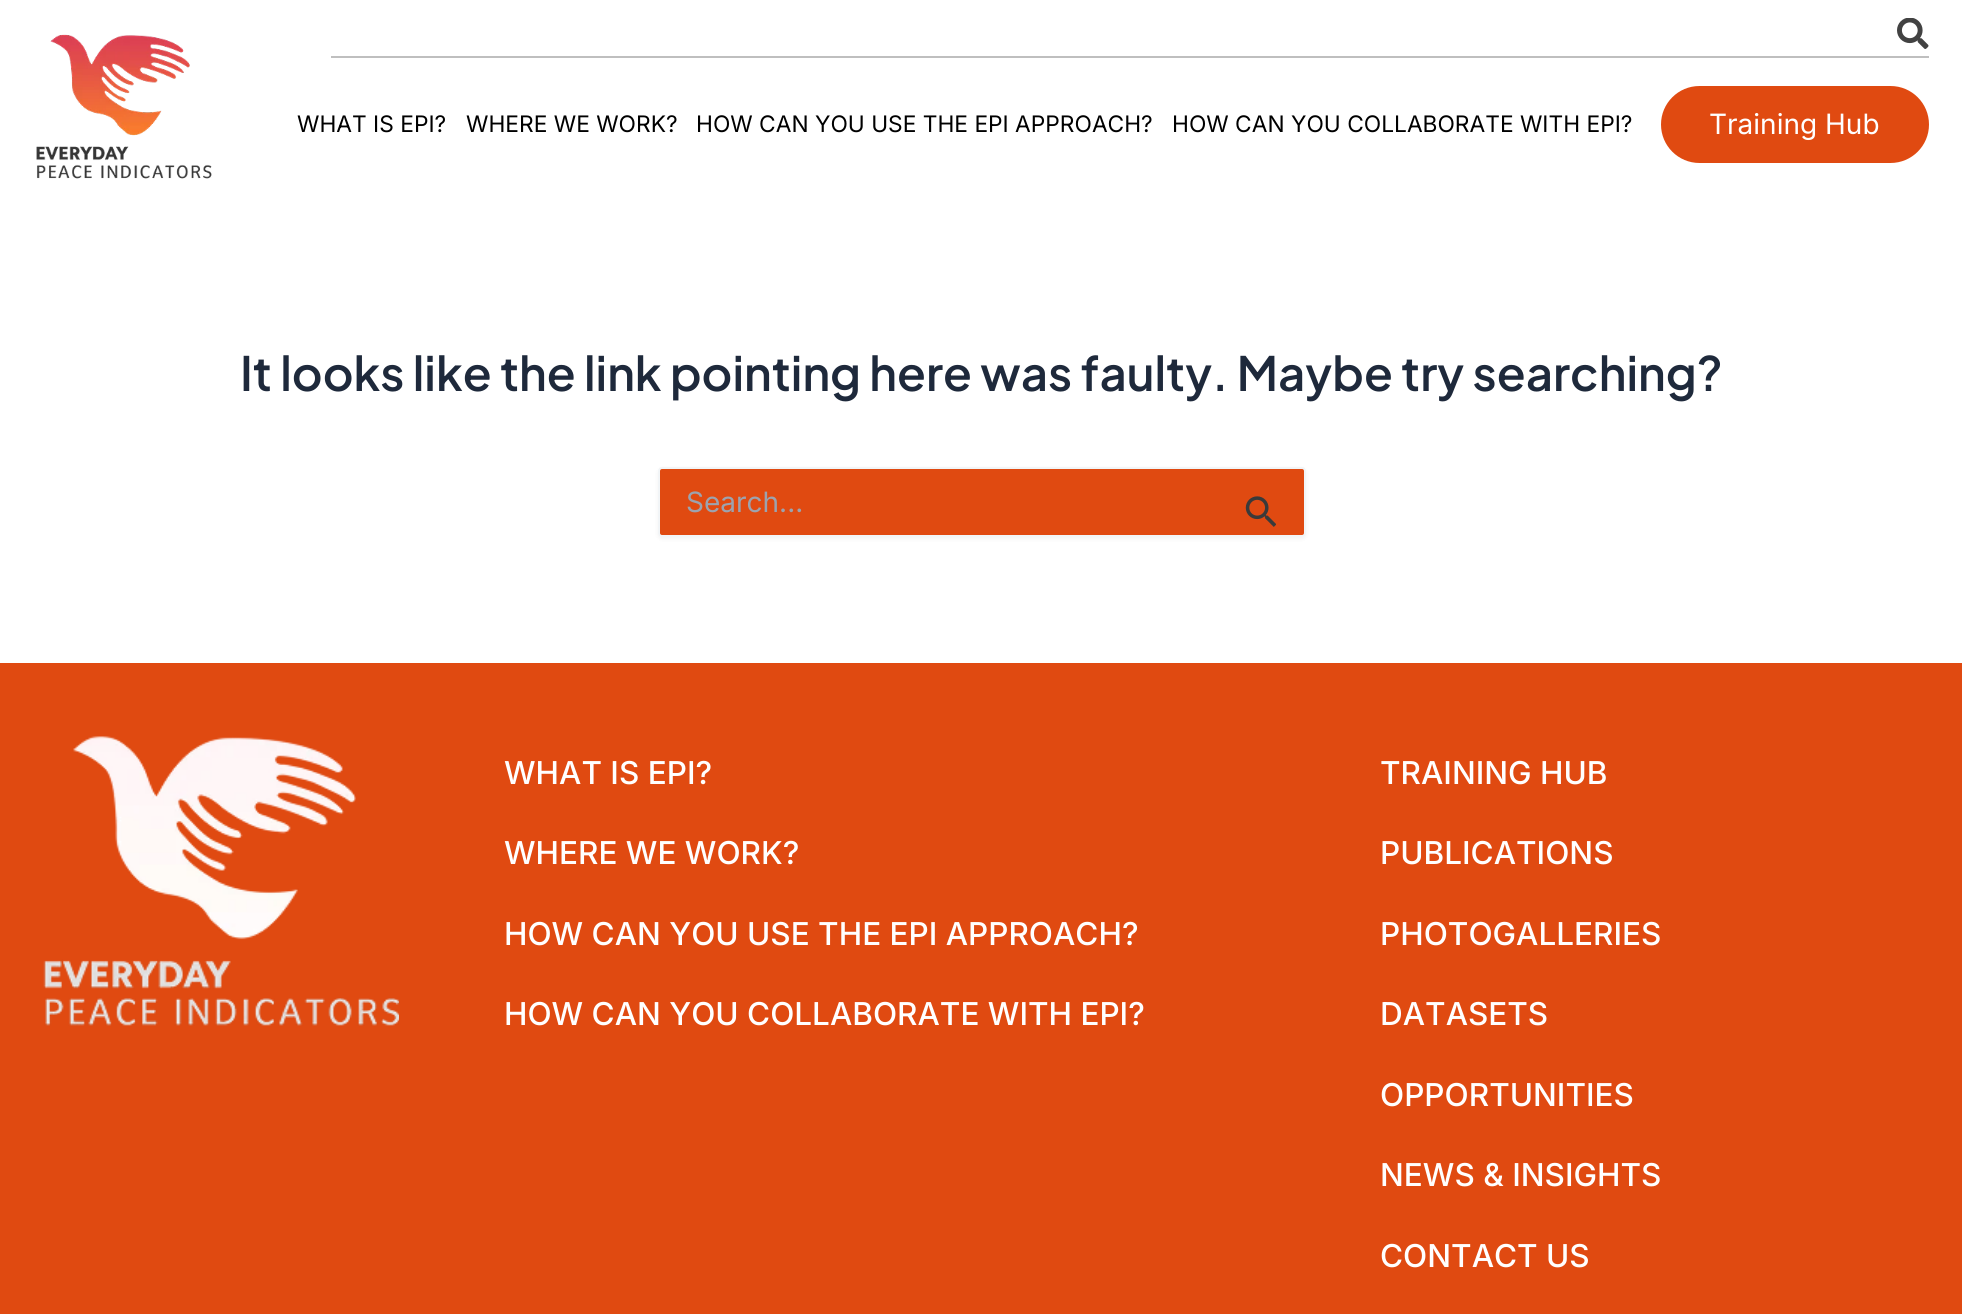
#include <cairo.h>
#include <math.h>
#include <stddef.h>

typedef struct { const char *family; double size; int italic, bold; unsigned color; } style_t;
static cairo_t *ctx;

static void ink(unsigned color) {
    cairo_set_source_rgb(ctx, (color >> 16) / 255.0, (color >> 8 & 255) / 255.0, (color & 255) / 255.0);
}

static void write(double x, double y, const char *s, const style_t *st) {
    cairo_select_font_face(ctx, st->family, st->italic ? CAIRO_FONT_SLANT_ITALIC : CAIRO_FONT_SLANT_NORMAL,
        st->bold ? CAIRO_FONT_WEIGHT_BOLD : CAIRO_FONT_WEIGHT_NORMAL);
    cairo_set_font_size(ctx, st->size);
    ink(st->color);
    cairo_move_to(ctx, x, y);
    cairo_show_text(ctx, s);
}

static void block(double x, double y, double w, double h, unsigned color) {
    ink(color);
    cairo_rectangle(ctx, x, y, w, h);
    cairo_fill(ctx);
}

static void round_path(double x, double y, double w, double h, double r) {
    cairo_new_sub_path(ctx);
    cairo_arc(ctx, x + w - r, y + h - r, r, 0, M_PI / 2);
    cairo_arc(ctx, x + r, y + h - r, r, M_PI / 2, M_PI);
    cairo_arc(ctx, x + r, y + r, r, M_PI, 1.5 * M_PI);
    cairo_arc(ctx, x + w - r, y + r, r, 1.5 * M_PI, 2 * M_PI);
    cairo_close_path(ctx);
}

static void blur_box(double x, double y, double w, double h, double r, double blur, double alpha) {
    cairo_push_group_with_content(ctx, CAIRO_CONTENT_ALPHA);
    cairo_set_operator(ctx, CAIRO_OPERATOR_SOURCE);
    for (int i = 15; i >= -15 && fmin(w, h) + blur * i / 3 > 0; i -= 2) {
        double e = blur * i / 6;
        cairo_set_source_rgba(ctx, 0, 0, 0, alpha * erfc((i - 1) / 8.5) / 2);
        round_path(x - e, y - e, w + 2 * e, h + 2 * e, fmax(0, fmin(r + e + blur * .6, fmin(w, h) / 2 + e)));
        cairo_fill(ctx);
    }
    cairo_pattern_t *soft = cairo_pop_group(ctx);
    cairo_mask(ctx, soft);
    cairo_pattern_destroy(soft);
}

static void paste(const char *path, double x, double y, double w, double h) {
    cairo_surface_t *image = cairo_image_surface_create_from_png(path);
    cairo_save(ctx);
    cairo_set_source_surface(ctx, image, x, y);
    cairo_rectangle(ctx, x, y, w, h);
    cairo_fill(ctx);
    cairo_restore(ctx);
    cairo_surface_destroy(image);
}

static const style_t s1 = {"Inter", 22.75, 0, 0, 0x000000};
static const style_t s2 = {"Inter", 28, 0, 0, 0xffffff};
static const style_t s3 = {"Plus Jakarta Sans SemiBold", 47.25, 0, 0, 0x1e293b};
static const style_t s4 = {"Inter", 28, 0, 0, 0x9ca3af};
static const style_t s5 = {"Inter Medium", 31.5, 0, 0, 0xffffff};

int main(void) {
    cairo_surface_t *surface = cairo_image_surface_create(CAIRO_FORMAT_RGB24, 1962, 1314);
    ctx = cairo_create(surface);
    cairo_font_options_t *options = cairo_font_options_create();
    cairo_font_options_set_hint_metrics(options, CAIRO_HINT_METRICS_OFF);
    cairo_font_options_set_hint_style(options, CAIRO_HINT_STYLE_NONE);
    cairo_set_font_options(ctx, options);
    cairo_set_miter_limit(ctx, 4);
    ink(0xffffff);
    cairo_paint(ctx);
    paste("pic1.png", 36, 34, 176, 145);
    paste("pic2.png", 1897, 18, 32, 31);
    block(331, 56, 1598, 2, 0xbfbfbf);
    write(297, 132, "WHAT IS EPI?", &s1);
    write(466, 132, "WHERE WE WORK?", &s1);
    write(696, 132, "HOW CAN YOU USE THE EPI APPROACH?", &s1);
    write(1172, 132, "HOW CAN YOU COLLABORATE WITH EPI?", &s1);
    ink(0xe04a11);
    round_path(1661, 86, 268, 77, 38.5);
    cairo_fill(ctx);
    write(1709, 134, "Training Hub", &s2);
    write(240, 391, "It looks like the link pointing here was faulty. Maybe try searching?", &s3);
    ink(0x000000);
    blur_box(658, 469, 648, 70, 4, 2, 0.05);
    ink(0xe04a11);
    round_path(659, 468, 646, 68, 3);
    cairo_fill_preserve(ctx);
    ink(0xf2f5f7);
    cairo_stroke(ctx);
    write(686, 512, "Search...", &s4);
    paste("pic3.png", 1245, 496, 31, 31);
    block(0, 663, 1962, 651, 0xe04a11);
    paste("pic4.png", 43, 736, 356, 290);
    write(504, 784, "WHAT IS EPI?", &s5);
    write(504, 864, "WHERE WE WORK?", &s5);
    write(504, 945, "HOW CAN YOU USE THE EPI APPROACH?", &s5);
    write(504, 1025, "HOW CAN YOU COLLABORATE WITH EPI?", &s5);
    write(1380, 784, "TRAINING HUB", &s5);
    write(1380, 864, "PUBLICATIONS", &s5);
    write(1380, 945, "PHOTOGALLERIES", &s5);
    write(1380, 1025, "DATASETS", &s5);
    write(1380, 1106, "OPPORTUNITIES", &s5);
    write(1380, 1186, "NEWS & INSIGHTS", &s5);
    write(1380, 1267, "CONTACT US", &s5);
    cairo_surface_write_to_png(surface, "screenshot.png");
    cairo_font_options_destroy(options);
    cairo_destroy(ctx);
    cairo_surface_destroy(surface);
    return 0;
}
